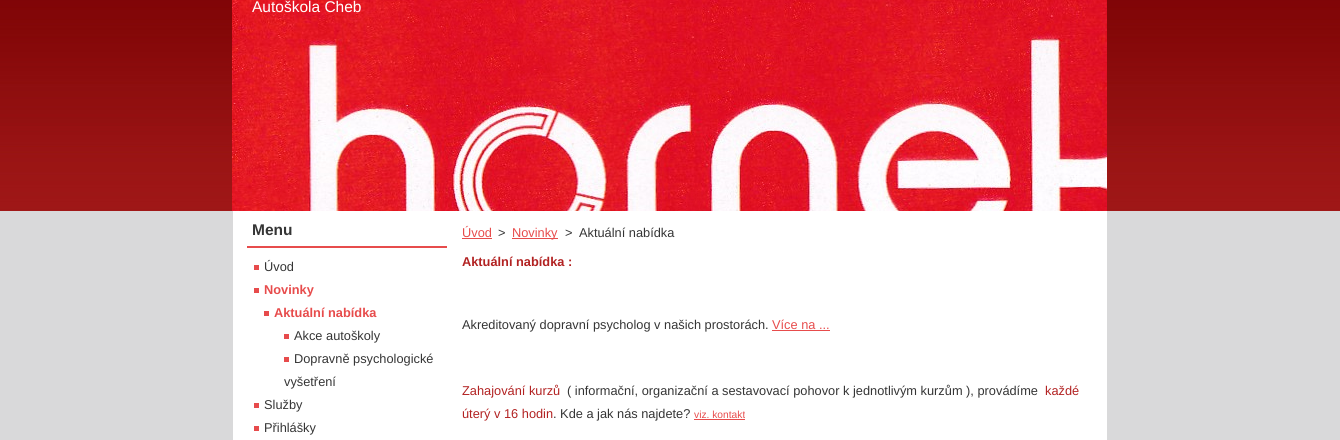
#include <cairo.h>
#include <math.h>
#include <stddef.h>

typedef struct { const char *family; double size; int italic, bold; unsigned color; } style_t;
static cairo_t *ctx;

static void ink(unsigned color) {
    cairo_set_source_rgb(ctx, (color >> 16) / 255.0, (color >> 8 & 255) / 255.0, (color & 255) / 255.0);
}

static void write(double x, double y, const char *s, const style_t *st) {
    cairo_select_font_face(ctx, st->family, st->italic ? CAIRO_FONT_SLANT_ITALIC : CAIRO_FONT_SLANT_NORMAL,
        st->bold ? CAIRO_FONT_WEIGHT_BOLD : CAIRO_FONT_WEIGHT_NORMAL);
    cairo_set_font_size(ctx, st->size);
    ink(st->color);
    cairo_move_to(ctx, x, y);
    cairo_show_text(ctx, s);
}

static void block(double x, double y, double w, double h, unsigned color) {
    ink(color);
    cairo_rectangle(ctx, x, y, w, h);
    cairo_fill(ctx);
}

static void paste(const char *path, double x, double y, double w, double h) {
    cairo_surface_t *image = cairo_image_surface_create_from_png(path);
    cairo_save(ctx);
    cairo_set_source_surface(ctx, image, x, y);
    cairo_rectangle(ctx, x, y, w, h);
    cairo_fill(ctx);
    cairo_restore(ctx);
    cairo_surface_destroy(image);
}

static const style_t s1 = {"Liberation Sans", 15.5, 0, 0, 0xffffff};
static const style_t s2 = {"Liberation Sans", 15.5, 0, 1, 0x353535};
static const style_t s3 = {"Liberation Sans", 12.8, 0, 0, 0x353535};
static const style_t s4 = {"Liberation Sans", 12.8, 0, 1, 0xe74c4c};
static const style_t s5 = {"Liberation Sans", 12.8, 0, 0, 0xe74c4c};
static const style_t s6 = {"Liberation Sans", 12.8, 0, 1, 0xb22222};
static const style_t s7 = {"Liberation Sans", 12.8, 0, 0, 0xb22222};
static const style_t s8 = {"Liberation Sans", 10.25, 0, 0, 0xe74c4c};

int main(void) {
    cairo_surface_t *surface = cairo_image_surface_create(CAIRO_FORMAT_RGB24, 1340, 440);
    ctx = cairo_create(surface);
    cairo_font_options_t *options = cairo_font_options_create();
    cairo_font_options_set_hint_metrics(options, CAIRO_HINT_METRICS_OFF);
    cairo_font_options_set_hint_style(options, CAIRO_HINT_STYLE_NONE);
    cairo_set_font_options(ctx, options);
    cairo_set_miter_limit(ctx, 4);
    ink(0xd9d9da);
    cairo_paint(ctx);
    paste("pic1.png", 0, 0, 1340, 211);
    block(233, 211, 874, 229, 0xffffff);
    paste("pic2.png", 232, 0, 875, 211);
    write(252, 12, "Autoškola Cheb", &s1);
    block(247, 246, 200, 2, 0xe74c4c);
    write(252, 235, "Menu", &s2);
    write(264, 271, "Úvod", &s3);
    block(254, 265, 5, 5, 0xe74b4c);
    write(264, 294, "Novinky", &s4);
    block(254, 288, 5, 5, 0xe74b4c);
    write(274, 317, "Aktuální nabídka", &s4);
    block(264, 311, 5, 5, 0xe74b4c);
    write(294, 340, "Akce autoškoly", &s3);
    block(284, 334, 5, 5, 0xe74b4c);
    write(294, 363, "Dopravně psychologické", &s3);
    block(284, 357, 5, 5, 0xe74b4c);
    write(284, 386, "vyšetření", &s3);
    write(264, 409, "Služby", &s3);
    block(254, 403, 5, 5, 0xe74b4c);
    write(264, 432, "Přihlášky", &s3);
    block(254, 426, 5, 5, 0xe74b4c);
    write(462, 237, "Úvod", &s5);
    block(462, 238, 30, 1, 0xe74c4c);
    write(498, 237, ">", &s3);
    block(512, 238, 46, 1, 0xe74c4c);
    write(512, 237, "Novinky", &s5);
    write(565, 237, ">", &s3);
    write(579, 237, "Aktuální nabídka", &s3);
    write(462, 266, "Aktuální nabídka :", &s6);
    write(462, 329, "Akreditovaný dopravní psycholog v našich prostorách.", &s3);
    write(772, 329, "Více na ...", &s5);
    block(772, 330, 58, 1, 0xe74c4c);
    write(462, 395, "Zahajování kurzů", &s7);
    write(567, 395, "( informační, organizační a sestavovací pohovor k jednotlivým kurzům ), provádíme", &s3);
    write(1045, 395, "každé", &s7);
    write(462, 418, "úterý v 16 hodin", &s7);
    write(553, 418, ". Kde a jak nás najdete?", &s3);
    write(694, 418, "viz. kontakt", &s8);
    block(694, 419, 51, 1, 0xe74c4c);
    cairo_surface_write_to_png(surface, "screenshot.png");
    cairo_font_options_destroy(options);
    cairo_destroy(ctx);
    cairo_surface_destroy(surface);
    return 0;
}
